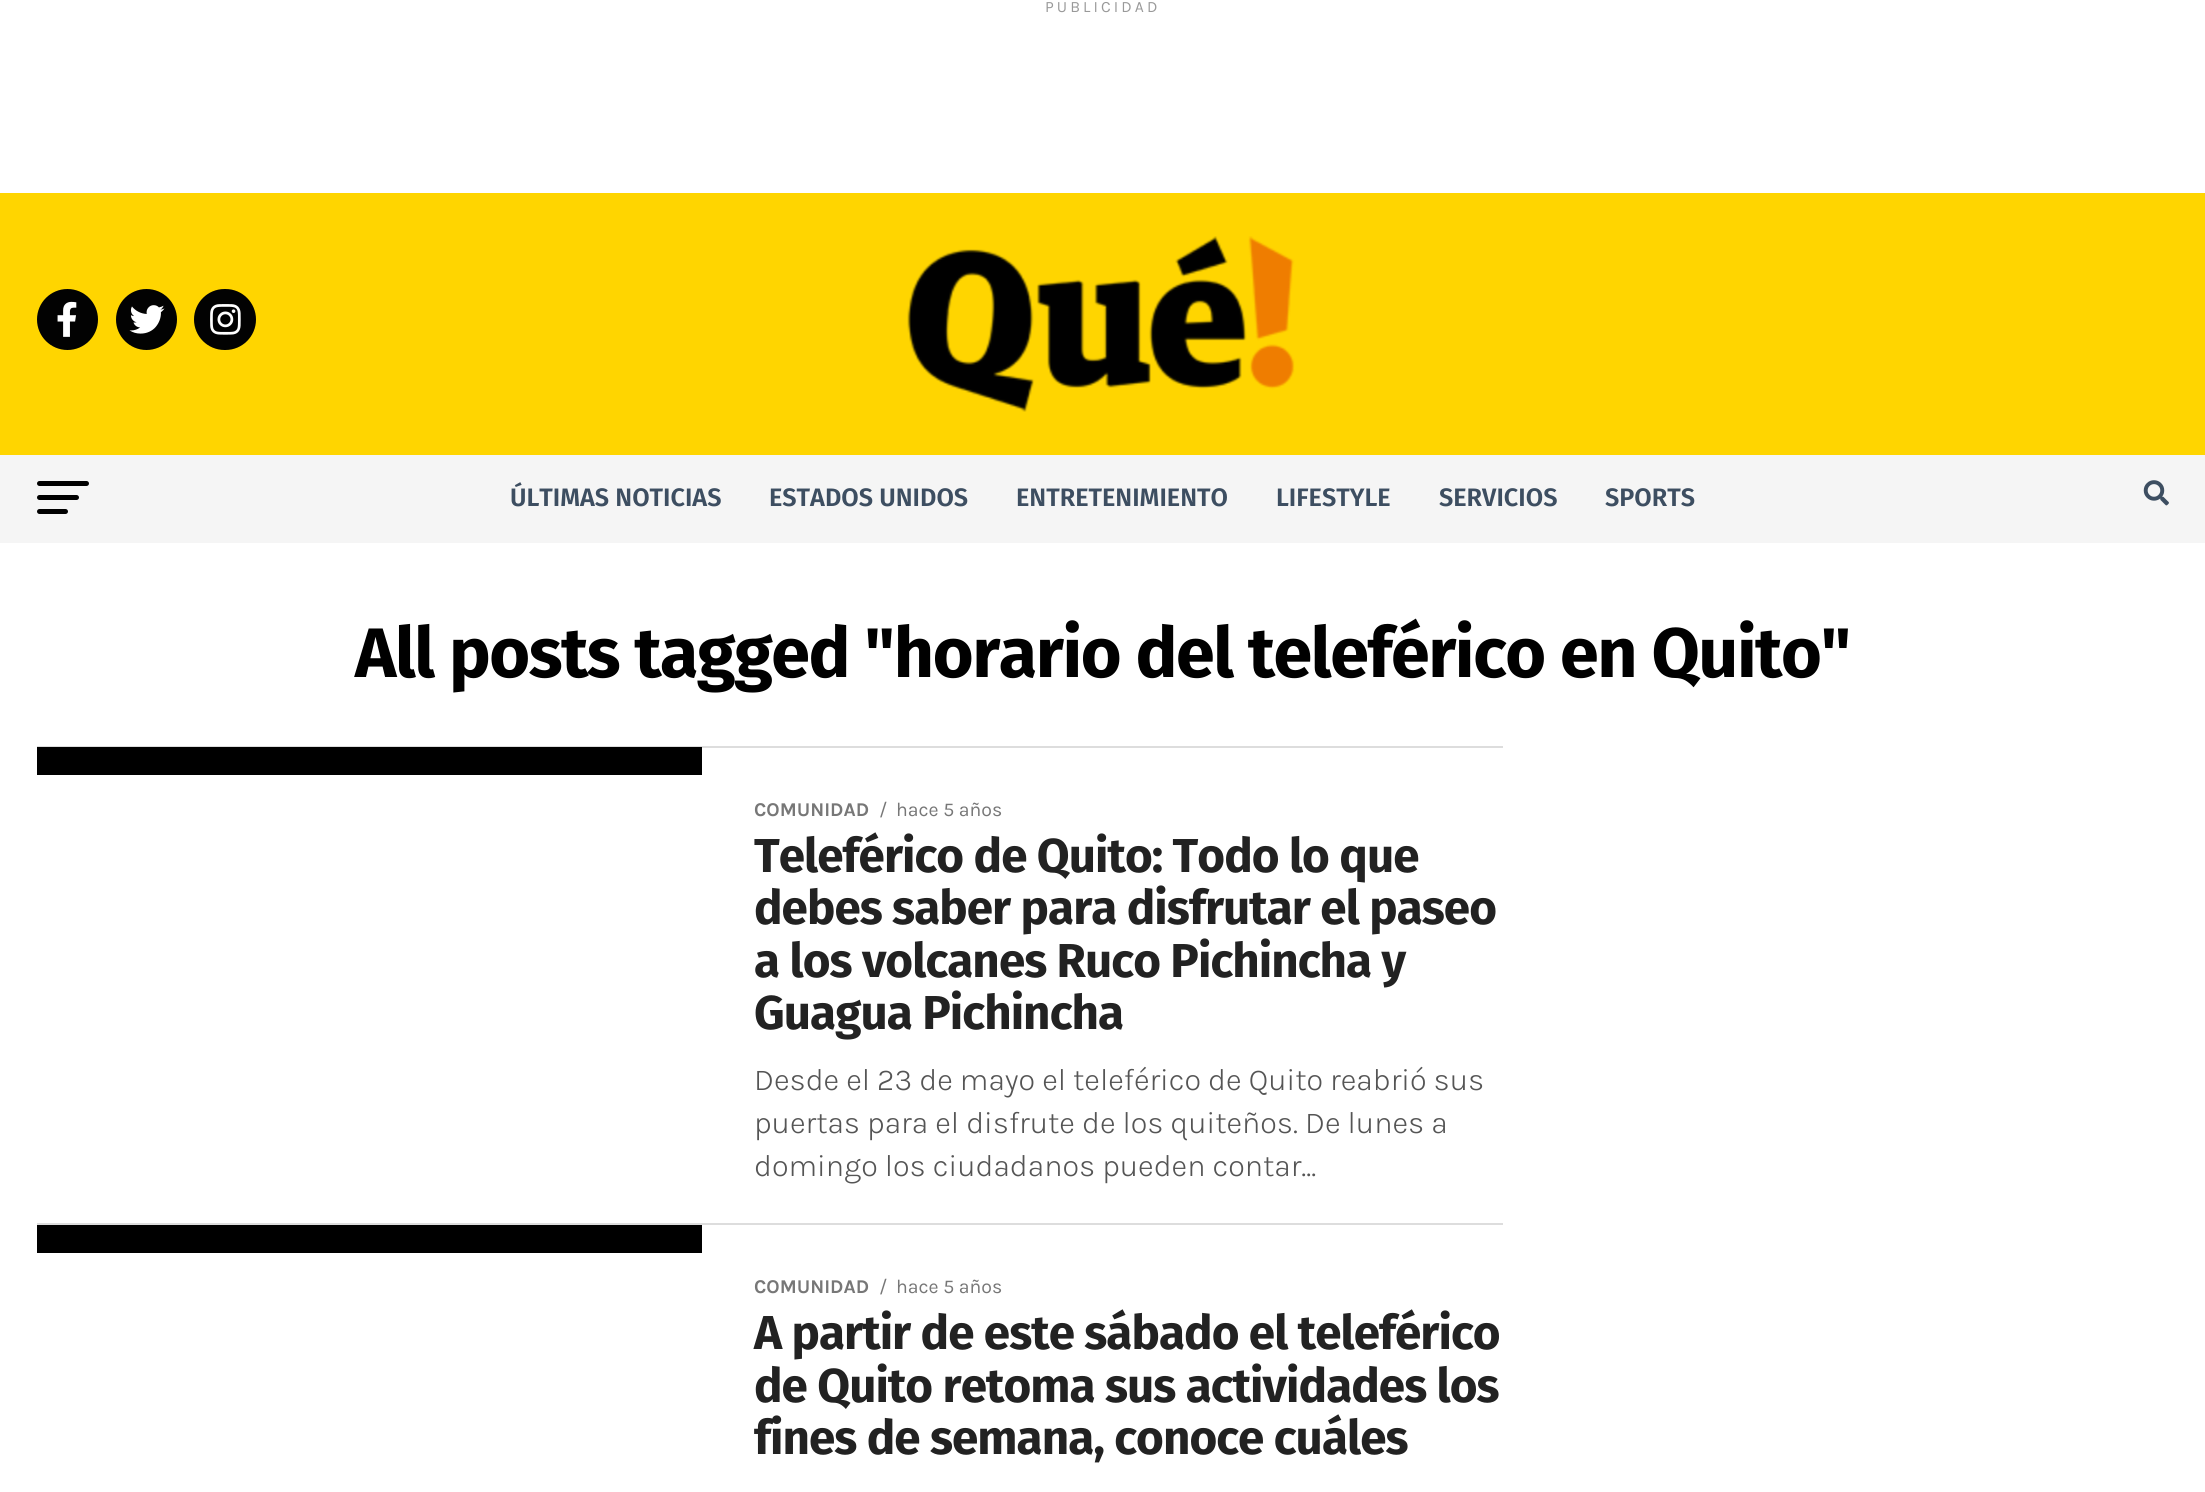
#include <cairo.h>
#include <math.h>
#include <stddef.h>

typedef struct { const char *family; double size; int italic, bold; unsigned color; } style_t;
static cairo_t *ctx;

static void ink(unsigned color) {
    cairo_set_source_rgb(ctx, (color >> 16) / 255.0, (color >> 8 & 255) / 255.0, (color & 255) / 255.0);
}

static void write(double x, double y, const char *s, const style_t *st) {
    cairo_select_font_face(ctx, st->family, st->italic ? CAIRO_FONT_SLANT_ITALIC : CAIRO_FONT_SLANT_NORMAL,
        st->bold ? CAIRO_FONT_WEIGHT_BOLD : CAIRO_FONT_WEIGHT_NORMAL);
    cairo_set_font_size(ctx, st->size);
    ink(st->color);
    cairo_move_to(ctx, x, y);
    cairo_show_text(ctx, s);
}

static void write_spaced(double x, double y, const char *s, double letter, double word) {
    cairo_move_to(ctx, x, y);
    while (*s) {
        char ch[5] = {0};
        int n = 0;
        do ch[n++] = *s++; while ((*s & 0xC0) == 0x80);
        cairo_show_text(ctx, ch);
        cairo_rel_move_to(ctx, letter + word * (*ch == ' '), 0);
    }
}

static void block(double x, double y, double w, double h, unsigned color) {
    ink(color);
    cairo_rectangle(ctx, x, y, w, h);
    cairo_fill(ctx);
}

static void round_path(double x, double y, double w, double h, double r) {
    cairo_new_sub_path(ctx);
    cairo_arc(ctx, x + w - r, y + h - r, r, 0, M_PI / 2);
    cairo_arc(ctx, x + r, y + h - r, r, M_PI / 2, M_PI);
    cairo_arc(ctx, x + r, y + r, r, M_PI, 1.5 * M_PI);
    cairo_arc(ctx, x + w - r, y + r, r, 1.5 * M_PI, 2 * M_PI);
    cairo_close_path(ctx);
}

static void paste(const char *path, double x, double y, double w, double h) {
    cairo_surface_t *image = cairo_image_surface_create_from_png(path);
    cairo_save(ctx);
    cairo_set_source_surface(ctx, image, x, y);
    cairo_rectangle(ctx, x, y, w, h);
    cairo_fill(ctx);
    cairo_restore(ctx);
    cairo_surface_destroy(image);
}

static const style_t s1 = {"Fira Sans SemiBold", 25.25, 0, 0, 0x3d4e61};
static const style_t s2 = {"Karla", 19.5, 0, 1, 0x777777};
static const style_t s3 = {"Karla", 19.5, 0, 0, 0x777777};
static const style_t s4 = {"Karla Light", 30.8, 0, 0, 0x555555};

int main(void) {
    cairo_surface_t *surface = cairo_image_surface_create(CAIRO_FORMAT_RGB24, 2205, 1492);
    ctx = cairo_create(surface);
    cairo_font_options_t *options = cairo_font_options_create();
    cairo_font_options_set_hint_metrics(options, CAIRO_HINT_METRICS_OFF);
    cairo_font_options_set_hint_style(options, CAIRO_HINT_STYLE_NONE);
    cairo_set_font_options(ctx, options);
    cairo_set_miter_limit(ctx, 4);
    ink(0xffffff);
    cairo_paint(ctx);
    cairo_select_font_face(ctx, "Karla", CAIRO_FONT_SLANT_NORMAL, CAIRO_FONT_WEIGHT_NORMAL);
    cairo_set_font_size(ctx, 15.75);
    ink(0x999999);
    write_spaced(1045, 12, "PUBLICIDAD", 3.1, 0);
    block(0, 193, 2205, 262, 0xffd500);
    ink(0x020202);
    cairo_new_path(ctx);
    cairo_arc(ctx, 67.5, 319.5, 30.5, 0, 2 * M_PI);
    cairo_fill(ctx);
    paste("pic1.png", 57, 301, 20, 36);
    cairo_arc(ctx, 146.5, 319.5, 30.5, 0, 2 * M_PI);
    cairo_fill(ctx);
    paste("pic2.png", 129, 305, 36, 29);
    round_path(194, 289, 62, 61, 30.5);
    cairo_fill(ctx);
    paste("pic3.png", 210, 304, 31, 31);
    paste("pic4.png", 907, 236, 388, 176);
    block(0, 455, 2205, 88, 0xf5f5f5);
    ink(0x000000);
    round_path(37, 481, 52, 5, 2.5);
    cairo_fill(ctx);
    round_path(37, 495, 42, 5, 2.5);
    cairo_fill(ctx);
    round_path(37, 509, 31, 5, 2.5);
    cairo_fill(ctx);
    write(510, 506, "ÚLTIMAS NOTICIAS", &s1);
    write(769, 506, "ESTADOS UNIDOS", &s1);
    write(1016, 506, "ENTRETENIMIENTO", &s1);
    write(1276, 506, "LIFESTYLE", &s1);
    write(1439, 506, "SERVICIOS", &s1);
    write(1605, 506, "SPORTS", &s1);
    paste("pic5.png", 2143, 480, 26, 26);
    cairo_select_font_face(ctx, "Fira Sans", CAIRO_FONT_SLANT_NORMAL, CAIRO_FONT_WEIGHT_BOLD);
    cairo_set_font_size(ctx, 70);
    ink(0x000000);
    write_spaced(355, 677, "All posts tagged \"horario del teleférico en Quito\"", -1.4, 0);
    block(37, 746, 1466, 2, 0xdddddd);
    block(37, 747, 665, 28, 0x000000);
    write(754, 816, "COMUNIDAD", &s2);
    write(879, 816, "/", &s3);
    write(896, 816, "hace 5 años", &s3);
    cairo_select_font_face(ctx, "Fira Sans", CAIRO_FONT_SLANT_NORMAL, CAIRO_FONT_WEIGHT_BOLD);
    cairo_set_font_size(ctx, 47.6);
    ink(0x222222);
    write_spaced(754, 872, "Teleférico de Quito: Todo lo que", -0.95, 0);
    write_spaced(754, 924, "debes saber para disfrutar el paseo", -0.95, 0);
    write_spaced(754, 977, "a los volcanes Ruco Pichincha y", -0.95, 0);
    write_spaced(754, 1029, "Guagua Pichincha", -0.95, 0);
    write(754, 1090, "Desde el 23 de mayo el teleférico de Quito reabrió sus", &s4);
    write(754, 1133, "puertas para el disfrute de los quiteños. De lunes a", &s4);
    write(754, 1176, "domingo los ciudadanos pueden contar...", &s4);
    block(37, 1223, 1466, 2, 0xdddddd);
    block(37, 1225, 665, 28, 0x000000);
    write(754, 1293, "COMUNIDAD", &s2);
    write(879, 1293, "/", &s3);
    write(896, 1293, "hace 5 años", &s3);
    cairo_select_font_face(ctx, "Fira Sans", CAIRO_FONT_SLANT_NORMAL, CAIRO_FONT_WEIGHT_BOLD);
    cairo_set_font_size(ctx, 47.6);
    ink(0x222222);
    write_spaced(754, 1349, "A partir de este sábado el teleférico", -0.95, 0);
    write_spaced(754, 1402, "de Quito retoma sus actividades los", -0.95, 0);
    write_spaced(754, 1454, "fines de semana, conoce cuáles", -0.95, 0);
    cairo_surface_write_to_png(surface, "screenshot.png");
    cairo_font_options_destroy(options);
    cairo_destroy(ctx);
    cairo_surface_destroy(surface);
    return 0;
}
